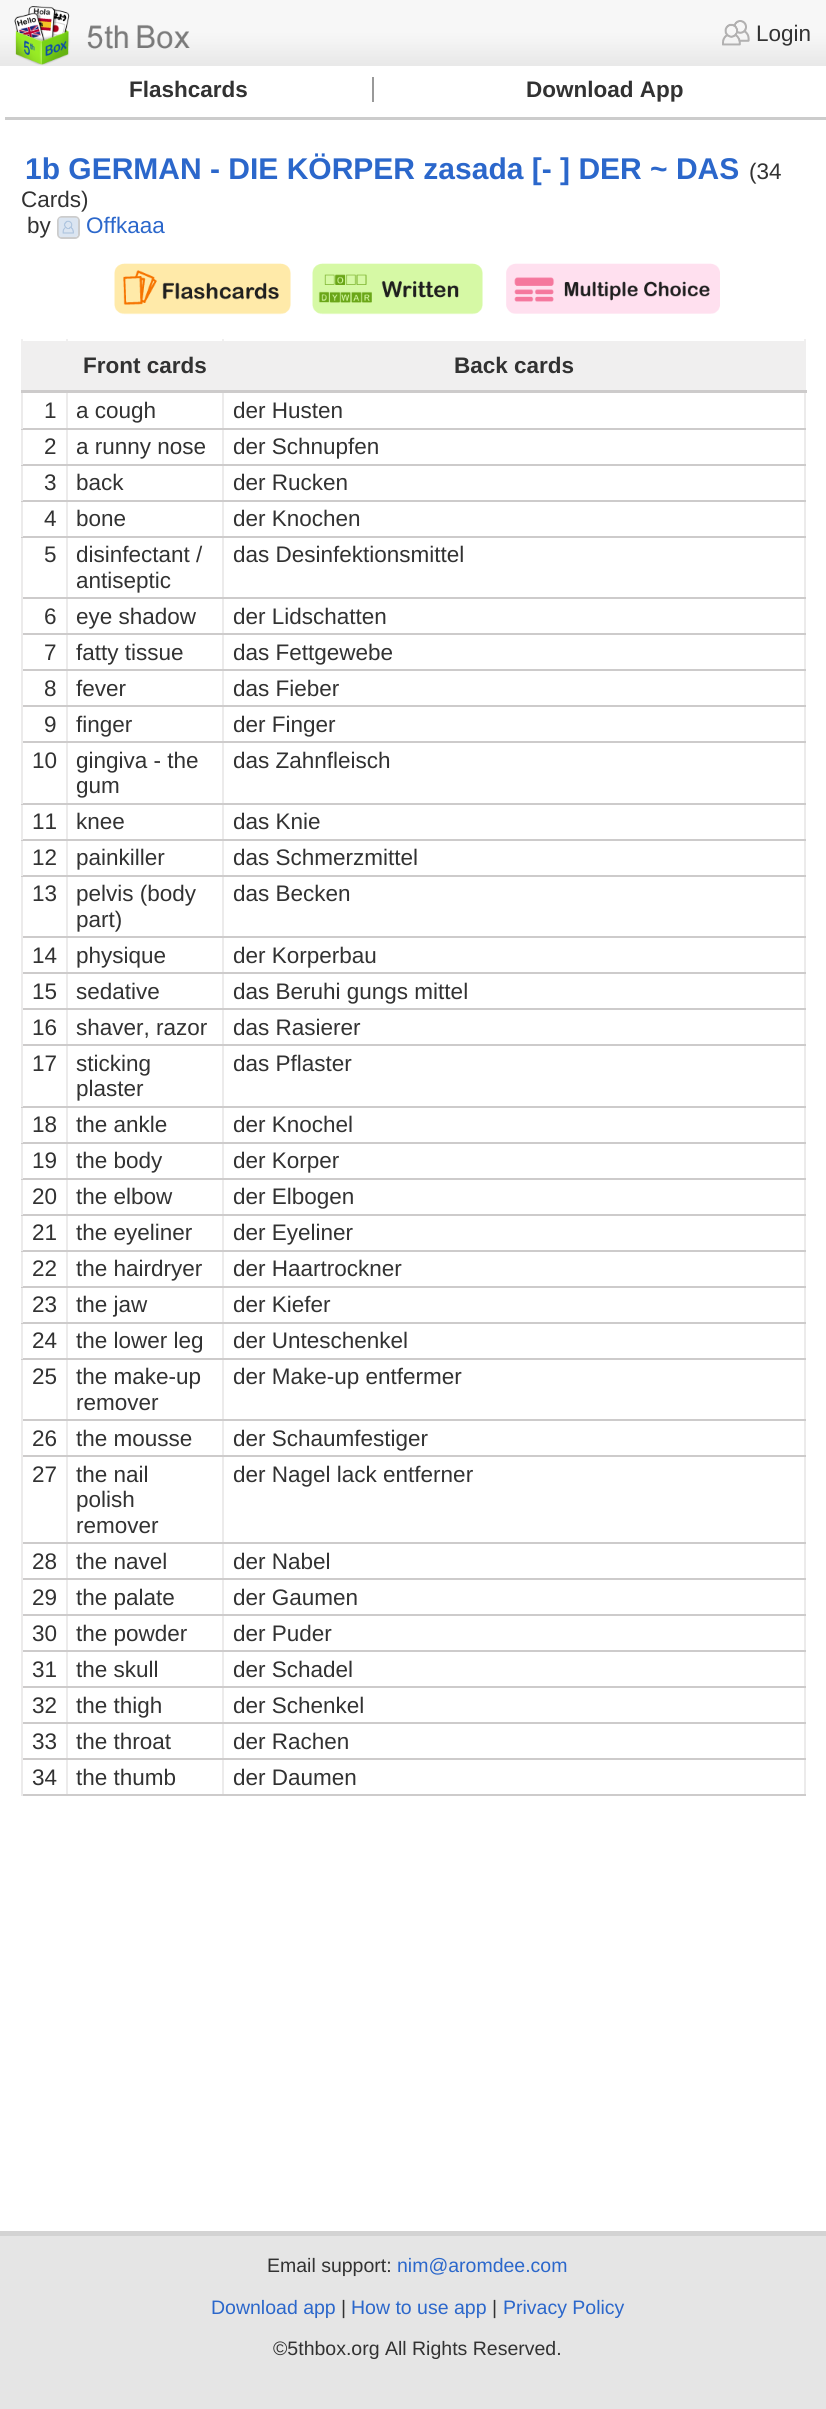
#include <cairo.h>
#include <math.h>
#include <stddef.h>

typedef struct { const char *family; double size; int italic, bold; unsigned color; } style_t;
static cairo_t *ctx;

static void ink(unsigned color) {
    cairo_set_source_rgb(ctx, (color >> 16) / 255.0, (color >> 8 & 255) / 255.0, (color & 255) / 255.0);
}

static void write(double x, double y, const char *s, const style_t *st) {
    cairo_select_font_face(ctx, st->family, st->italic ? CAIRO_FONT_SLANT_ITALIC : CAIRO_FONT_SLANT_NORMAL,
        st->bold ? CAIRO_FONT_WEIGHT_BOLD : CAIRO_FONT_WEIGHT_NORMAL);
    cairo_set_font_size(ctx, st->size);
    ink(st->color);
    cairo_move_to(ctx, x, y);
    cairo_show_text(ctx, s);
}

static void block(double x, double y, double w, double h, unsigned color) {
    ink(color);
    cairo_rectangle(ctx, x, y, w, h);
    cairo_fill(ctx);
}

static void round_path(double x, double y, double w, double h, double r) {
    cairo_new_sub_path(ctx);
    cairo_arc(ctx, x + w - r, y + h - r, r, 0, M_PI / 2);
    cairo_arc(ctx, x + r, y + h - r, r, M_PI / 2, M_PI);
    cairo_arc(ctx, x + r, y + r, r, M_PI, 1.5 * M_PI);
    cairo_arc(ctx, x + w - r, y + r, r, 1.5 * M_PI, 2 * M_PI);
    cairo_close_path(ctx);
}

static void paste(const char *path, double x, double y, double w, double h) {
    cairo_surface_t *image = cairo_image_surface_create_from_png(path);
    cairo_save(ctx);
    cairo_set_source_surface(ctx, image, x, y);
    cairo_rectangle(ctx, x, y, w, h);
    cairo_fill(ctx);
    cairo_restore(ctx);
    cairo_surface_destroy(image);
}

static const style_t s1 = {"Liberation Sans", 22.5, 0, 0, 0x323232};
static const style_t s2 = {"Liberation Sans", 22.5, 0, 1, 0x323232};
static const style_t s3 = {"Liberation Sans", 30, 0, 1, 0x2b67cb};
static const style_t s4 = {"Liberation Sans", 22.5, 0, 0, 0x2b67cb};
static const style_t s5 = {"Liberation Sans", 19.5, 0, 0, 0x323232};
static const style_t s6 = {"Liberation Sans", 19.5, 0, 0, 0x2b67cb};

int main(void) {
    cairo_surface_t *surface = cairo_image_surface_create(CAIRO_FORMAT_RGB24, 826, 2409);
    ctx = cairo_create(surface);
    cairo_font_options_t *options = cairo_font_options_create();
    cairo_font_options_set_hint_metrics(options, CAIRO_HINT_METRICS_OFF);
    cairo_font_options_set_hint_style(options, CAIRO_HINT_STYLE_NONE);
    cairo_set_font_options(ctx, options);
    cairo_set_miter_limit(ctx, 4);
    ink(0xffffff);
    cairo_paint(ctx);
    paste("pic1.png", 0, 0, 826, 66);
    paste("pic2.png", 722, 20, 28, 26);
    write(756, 41, "Login", &s1);
    paste("pic3.png", 14, 6, 176, 59);
    block(5, 117, 821, 3, 0xcccccc);
    block(372, 77, 2, 25, 0x999999);
    write(129, 97, "Flashcards", &s2);
    write(526, 97, "Download App", &s2);
    write(25, 179, "1b GERMAN - DIE KÖRPER zasada [- ] DER ~ DAS", &s3);
    write(749, 179, "(34", &s1);
    write(21, 207, "Cards)", &s1);
    write(27, 233, "by", &s1);
    round_path(58, 217, 21, 21, 4);
    ink(0xcccccc);
    cairo_stroke(ctx);
    write(86, 233, "Offkaaa", &s4);
    paste("pic4.png", 58, 217, 20, 20);
    paste("pic5.png", 114, 263, 177, 52);
    paste("pic6.png", 312, 263, 171, 52);
    paste("pic7.png", 506, 263, 214, 51);
    block(23, 341, 43, 49, 0xf0efef);
    block(804, 390, 2, 1406, 0xecebeb);
    block(222, 1794, 584, 2, 0xcdcbcb);
    block(222, 1758, 2, 38, 0xecebeb);
    block(222, 1758, 584, 2, 0xcdcbcb);
    block(222, 1722, 2, 38, 0xecebeb);
    block(222, 1722, 584, 2, 0xcdcbcb);
    block(222, 1686, 2, 38, 0xecebeb);
    block(222, 1686, 584, 2, 0xcdcbcb);
    block(222, 1650, 2, 38, 0xecebeb);
    block(222, 1650, 584, 2, 0xcdcbcb);
    block(222, 1614, 2, 38, 0xecebeb);
    block(222, 1614, 584, 2, 0xcdcbcb);
    block(222, 1578, 2, 38, 0xecebeb);
    block(222, 1578, 584, 2, 0xcdcbcb);
    block(222, 1542, 2, 38, 0xecebeb);
    block(222, 1542, 584, 2, 0xcdcbcb);
    block(222, 1455, 2, 89, 0xecebeb);
    block(222, 1455, 584, 2, 0xcdcbcb);
    block(222, 1419, 2, 38, 0xecebeb);
    block(222, 1419, 584, 2, 0xcdcbcb);
    block(222, 1358, 2, 63, 0xecebeb);
    block(222, 1358, 584, 2, 0xcdcbcb);
    block(222, 1322, 2, 37, 0xecebeb);
    block(222, 1322, 584, 2, 0xcdcbcb);
    block(222, 1286, 2, 37, 0xecebeb);
    block(222, 1286, 584, 2, 0xcdcbcb);
    block(222, 1250, 2, 37, 0xecebeb);
    block(222, 1250, 584, 2, 0xcdcbcb);
    block(222, 1214, 2, 37, 0xecebeb);
    block(222, 1214, 584, 2, 0xcdcbcb);
    block(222, 1178, 2, 37, 0xecebeb);
    block(222, 1178, 584, 2, 0xcdcbcb);
    block(222, 1142, 2, 37, 0xecebeb);
    block(222, 1142, 584, 2, 0xcdcbcb);
    block(222, 1106, 2, 37, 0xecebeb);
    block(222, 1106, 584, 2, 0xcdcbcb);
    block(222, 1044, 2, 63, 0xecebeb);
    block(222, 1044, 584, 2, 0xcdcbcb);
    block(222, 1008, 2, 38, 0xecebeb);
    block(222, 1008, 584, 2, 0xcdcbcb);
    block(222, 972, 2, 38, 0xecebeb);
    block(222, 972, 584, 2, 0xcdcbcb);
    block(222, 936, 2, 38, 0xecebeb);
    block(222, 936, 584, 2, 0xcdcbcb);
    block(222, 875, 2, 63, 0xecebeb);
    block(222, 875, 584, 2, 0xcdcbcb);
    block(222, 839, 2, 37, 0xecebeb);
    block(222, 839, 584, 2, 0xcdcbcb);
    block(222, 803, 2, 37, 0xecebeb);
    block(222, 803, 584, 2, 0xcdcbcb);
    block(222, 741, 2, 63, 0xecebeb);
    block(222, 741, 584, 2, 0xcdcbcb);
    block(222, 705, 2, 38, 0xecebeb);
    block(222, 705, 584, 2, 0xcdcbcb);
    block(222, 669, 2, 38, 0xecebeb);
    block(222, 669, 584, 2, 0xcdcbcb);
    block(222, 633, 2, 38, 0xecebeb);
    block(222, 633, 584, 2, 0xcdcbcb);
    block(222, 597, 2, 38, 0xecebeb);
    block(222, 597, 584, 2, 0xcdcbcb);
    block(222, 536, 2, 63, 0xecebeb);
    block(222, 536, 584, 2, 0xcdcbcb);
    block(222, 500, 2, 37, 0xecebeb);
    block(222, 500, 584, 2, 0xcdcbcb);
    block(222, 464, 2, 37, 0xecebeb);
    block(222, 464, 584, 2, 0xcdcbcb);
    block(222, 428, 2, 37, 0xecebeb);
    block(222, 428, 584, 2, 0xcdcbcb);
    block(222, 390, 2, 39, 0xecebeb);
    block(66, 1794, 158, 2, 0xcdcbcb);
    block(66, 1758, 2, 38, 0xecebeb);
    block(66, 1758, 158, 2, 0xcdcbcb);
    block(66, 1722, 2, 38, 0xecebeb);
    block(66, 1722, 158, 2, 0xcdcbcb);
    block(66, 1686, 2, 38, 0xecebeb);
    block(66, 1686, 158, 2, 0xcdcbcb);
    block(66, 1650, 2, 38, 0xecebeb);
    block(66, 1650, 158, 2, 0xcdcbcb);
    block(66, 1614, 2, 38, 0xecebeb);
    block(66, 1614, 158, 2, 0xcdcbcb);
    block(66, 1578, 2, 38, 0xecebeb);
    block(66, 1578, 158, 2, 0xcdcbcb);
    block(66, 1542, 2, 38, 0xecebeb);
    block(66, 1542, 158, 2, 0xcdcbcb);
    block(66, 1455, 2, 89, 0xecebeb);
    block(66, 1455, 158, 2, 0xcdcbcb);
    block(66, 1419, 2, 38, 0xecebeb);
    block(66, 1419, 158, 2, 0xcdcbcb);
    block(66, 1358, 2, 63, 0xecebeb);
    block(66, 1358, 158, 2, 0xcdcbcb);
    block(66, 1322, 2, 37, 0xecebeb);
    block(66, 1322, 158, 2, 0xcdcbcb);
    block(66, 1286, 2, 37, 0xecebeb);
    block(66, 1286, 158, 2, 0xcdcbcb);
    block(66, 1250, 2, 37, 0xecebeb);
    block(66, 1250, 158, 2, 0xcdcbcb);
    block(66, 1214, 2, 37, 0xecebeb);
    block(66, 1214, 158, 2, 0xcdcbcb);
    block(66, 1178, 2, 37, 0xecebeb);
    block(66, 1178, 158, 2, 0xcdcbcb);
    block(66, 1142, 2, 37, 0xecebeb);
    block(66, 1142, 158, 2, 0xcdcbcb);
    block(66, 1106, 2, 37, 0xecebeb);
    block(66, 1106, 158, 2, 0xcdcbcb);
    block(66, 1044, 2, 63, 0xecebeb);
    block(66, 1044, 158, 2, 0xcdcbcb);
    block(66, 1008, 2, 38, 0xecebeb);
    block(66, 1008, 158, 2, 0xcdcbcb);
    block(66, 972, 2, 38, 0xecebeb);
    block(66, 972, 158, 2, 0xcdcbcb);
    block(66, 936, 2, 38, 0xecebeb);
    block(66, 936, 158, 2, 0xcdcbcb);
    block(66, 875, 2, 63, 0xecebeb);
    block(66, 875, 158, 2, 0xcdcbcb);
    block(66, 839, 2, 37, 0xecebeb);
    block(66, 839, 158, 2, 0xcdcbcb);
    block(66, 803, 2, 37, 0xecebeb);
    block(66, 803, 158, 2, 0xcdcbcb);
    block(66, 741, 2, 63, 0xecebeb);
    block(66, 741, 158, 2, 0xcdcbcb);
    block(66, 705, 2, 38, 0xecebeb);
    block(66, 705, 158, 2, 0xcdcbcb);
    block(66, 669, 2, 38, 0xecebeb);
    block(66, 669, 158, 2, 0xcdcbcb);
    block(66, 633, 2, 38, 0xecebeb);
    block(66, 633, 158, 2, 0xcdcbcb);
    block(66, 597, 2, 38, 0xecebeb);
    block(66, 597, 158, 2, 0xcdcbcb);
    block(66, 536, 2, 63, 0xecebeb);
    block(66, 536, 158, 2, 0xcdcbcb);
    block(66, 500, 2, 37, 0xecebeb);
    block(66, 500, 158, 2, 0xcdcbcb);
    block(66, 464, 2, 37, 0xecebeb);
    block(66, 464, 158, 2, 0xcdcbcb);
    block(66, 428, 2, 37, 0xecebeb);
    block(66, 428, 158, 2, 0xcdcbcb);
    block(66, 390, 2, 39, 0xecebeb);
    block(21, 1794, 47, 2, 0xcdcbcb);
    block(21, 1758, 2, 38, 0xecebeb);
    block(21, 1758, 47, 2, 0xcdcbcb);
    block(21, 1722, 2, 38, 0xecebeb);
    block(21, 1722, 47, 2, 0xcdcbcb);
    block(21, 1686, 2, 38, 0xecebeb);
    block(21, 1686, 47, 2, 0xcdcbcb);
    block(21, 1650, 2, 38, 0xecebeb);
    block(21, 1650, 47, 2, 0xcdcbcb);
    block(21, 1614, 2, 38, 0xecebeb);
    block(21, 1614, 47, 2, 0xcdcbcb);
    block(21, 1578, 2, 38, 0xecebeb);
    block(21, 1578, 47, 2, 0xcdcbcb);
    block(21, 1542, 2, 38, 0xecebeb);
    block(21, 1542, 47, 2, 0xcdcbcb);
    block(21, 1455, 2, 89, 0xecebeb);
    block(21, 1455, 47, 2, 0xcdcbcb);
    block(21, 1419, 2, 38, 0xecebeb);
    block(21, 1419, 47, 2, 0xcdcbcb);
    block(21, 1358, 2, 63, 0xecebeb);
    block(21, 1358, 47, 2, 0xcdcbcb);
    block(21, 1322, 2, 37, 0xecebeb);
    block(21, 1322, 47, 2, 0xcdcbcb);
    block(21, 1286, 2, 37, 0xecebeb);
    block(21, 1286, 47, 2, 0xcdcbcb);
    block(21, 1250, 2, 37, 0xecebeb);
    block(21, 1250, 47, 2, 0xcdcbcb);
    block(21, 1214, 2, 37, 0xecebeb);
    block(21, 1214, 47, 2, 0xcdcbcb);
    block(21, 1178, 2, 37, 0xecebeb);
    block(21, 1178, 47, 2, 0xcdcbcb);
    block(21, 1142, 2, 37, 0xecebeb);
    block(21, 1142, 47, 2, 0xcdcbcb);
    block(21, 1106, 2, 37, 0xecebeb);
    block(21, 1106, 47, 2, 0xcdcbcb);
    block(21, 1044, 2, 63, 0xecebeb);
    block(21, 1044, 47, 2, 0xcdcbcb);
    block(21, 1008, 2, 38, 0xecebeb);
    block(21, 1008, 47, 2, 0xcdcbcb);
    block(21, 972, 2, 38, 0xecebeb);
    block(21, 972, 47, 2, 0xcdcbcb);
    block(21, 936, 2, 38, 0xecebeb);
    block(21, 936, 47, 2, 0xcdcbcb);
    block(21, 875, 2, 63, 0xecebeb);
    block(21, 875, 47, 2, 0xcdcbcb);
    block(21, 839, 2, 37, 0xecebeb);
    block(21, 839, 47, 2, 0xcdcbcb);
    block(21, 803, 2, 37, 0xecebeb);
    block(21, 803, 47, 2, 0xcdcbcb);
    block(21, 741, 2, 63, 0xecebeb);
    block(21, 741, 47, 2, 0xcdcbcb);
    block(21, 705, 2, 38, 0xecebeb);
    block(21, 705, 47, 2, 0xcdcbcb);
    block(21, 669, 2, 38, 0xecebeb);
    block(21, 669, 47, 2, 0xcdcbcb);
    block(21, 633, 2, 38, 0xecebeb);
    block(21, 633, 47, 2, 0xcdcbcb);
    block(21, 597, 2, 38, 0xecebeb);
    block(21, 597, 47, 2, 0xcdcbcb);
    block(21, 536, 2, 63, 0xecebeb);
    block(21, 536, 47, 2, 0xcdcbcb);
    block(21, 500, 2, 37, 0xecebeb);
    block(21, 500, 47, 2, 0xcdcbcb);
    block(21, 464, 2, 37, 0xecebeb);
    block(21, 464, 47, 2, 0xcdcbcb);
    block(21, 428, 2, 37, 0xecebeb);
    block(21, 428, 47, 2, 0xcdcbcb);
    block(21, 390, 2, 39, 0xecebeb);
    block(21, 339, 2, 53, 0xf0efef);
    block(68, 341, 154, 49, 0xf0efef);
    block(66, 339, 2, 53, 0xf0efef);
    write(83, 373, "Front cards", &s2);
    block(224, 341, 580, 49, 0xf0efef);
    block(804, 339, 2, 53, 0xf0efef);
    block(222, 339, 2, 53, 0xf0efef);
    block(21, 390, 786, 3, 0xcdcbcb);
    write(454, 373, "Back cards", &s2);
    write(44, 418, "1", &s1);
    write(76, 418, "a cough", &s1);
    write(233, 418, "der Husten", &s1);
    write(44, 454, "2", &s1);
    write(76, 454, "a runny nose", &s1);
    write(233, 454, "der Schnupfen", &s1);
    write(44, 490, "3", &s1);
    write(76, 490, "back", &s1);
    write(233, 490, "der Rucken", &s1);
    write(44, 526, "4", &s1);
    write(76, 526, "bone", &s1);
    write(233, 526, "der Knochen", &s1);
    write(44, 562, "5", &s1);
    write(76, 562, "disinfectant /", &s1);
    write(76, 588, "antiseptic", &s1);
    write(233, 562, "das Desinfektionsmittel", &s1);
    write(44, 624, "6", &s1);
    write(76, 624, "eye shadow", &s1);
    write(233, 624, "der Lidschatten", &s1);
    write(44, 660, "7", &s1);
    write(76, 660, "fatty tissue", &s1);
    write(233, 660, "das Fettgewebe", &s1);
    write(44, 696, "8", &s1);
    write(76, 696, "fever", &s1);
    write(233, 696, "das Fieber", &s1);
    write(44, 732, "9", &s1);
    write(76, 732, "finger", &s1);
    write(233, 732, "der Finger", &s1);
    write(32, 768, "10", &s1);
    write(76, 768, "gingiva - the", &s1);
    write(76, 793, "gum", &s1);
    write(233, 768, "das Zahnfleisch", &s1);
    write(32, 829, "11", &s1);
    write(76, 829, "knee", &s1);
    write(233, 829, "das Knie", &s1);
    write(32, 865, "12", &s1);
    write(76, 865, "painkiller", &s1);
    write(233, 865, "das Schmerzmittel", &s1);
    write(32, 901, "13", &s1);
    write(76, 901, "pelvis (body", &s1);
    write(76, 927, "part)", &s1);
    write(233, 901, "das Becken", &s1);
    write(32, 963, "14", &s1);
    write(76, 963, "physique", &s1);
    write(233, 963, "der Korperbau", &s1);
    write(32, 999, "15", &s1);
    write(76, 999, "sedative", &s1);
    write(233, 999, "das Beruhi gungs mittel", &s1);
    write(32, 1035, "16", &s1);
    write(76, 1035, "shaver, razor", &s1);
    write(233, 1035, "das Rasierer", &s1);
    write(32, 1071, "17", &s1);
    write(76, 1071, "sticking", &s1);
    write(76, 1096, "plaster", &s1);
    write(233, 1071, "das Pflaster", &s1);
    write(32, 1132, "18", &s1);
    write(76, 1132, "the ankle", &s1);
    write(233, 1132, "der Knochel", &s1);
    write(32, 1168, "19", &s1);
    write(76, 1168, "the body", &s1);
    write(233, 1168, "der Korper", &s1);
    write(32, 1204, "20", &s1);
    write(76, 1204, "the elbow", &s1);
    write(233, 1204, "der Elbogen", &s1);
    write(32, 1240, "21", &s1);
    write(76, 1240, "the eyeliner", &s1);
    write(233, 1240, "der Eyeliner", &s1);
    write(32, 1276, "22", &s1);
    write(76, 1276, "the hairdryer", &s1);
    write(233, 1276, "der Haartrockner", &s1);
    write(32, 1312, "23", &s1);
    write(76, 1312, "the jaw", &s1);
    write(233, 1312, "der Kiefer", &s1);
    write(32, 1348, "24", &s1);
    write(76, 1348, "the lower leg", &s1);
    write(233, 1348, "der Unteschenkel", &s1);
    write(32, 1384, "25", &s1);
    write(76, 1384, "the make-up", &s1);
    write(76, 1410, "remover", &s1);
    write(233, 1384, "der Make-up entfermer", &s1);
    write(32, 1446, "26", &s1);
    write(76, 1446, "the mousse", &s1);
    write(233, 1446, "der Schaumfestiger", &s1);
    write(32, 1482, "27", &s1);
    write(76, 1482, "the nail", &s1);
    write(76, 1507, "polish", &s1);
    write(76, 1533, "remover", &s1);
    write(233, 1482, "der Nagel lack entferner", &s1);
    write(32, 1569, "28", &s1);
    write(76, 1569, "the navel", &s1);
    write(233, 1569, "der Nabel", &s1);
    write(32, 1605, "29", &s1);
    write(76, 1605, "the palate", &s1);
    write(233, 1605, "der Gaumen", &s1);
    write(32, 1641, "30", &s1);
    write(76, 1641, "the powder", &s1);
    write(233, 1641, "der Puder", &s1);
    write(32, 1677, "31", &s1);
    write(76, 1677, "the skull", &s1);
    write(233, 1677, "der Schadel", &s1);
    write(32, 1713, "32", &s1);
    write(76, 1713, "the thigh", &s1);
    write(233, 1713, "der Schenkel", &s1);
    write(32, 1749, "33", &s1);
    write(76, 1749, "the throat", &s1);
    write(233, 1749, "der Rachen", &s1);
    write(32, 1785, "34", &s1);
    write(76, 1785, "the thumb", &s1);
    write(233, 1785, "der Daumen", &s1);
    block(0, 2236, 826, 173, 0xe5e5e5);
    block(0, 2231, 826, 5, 0xd3d3d3);
    write(267, 2272, "Email support:", &s5);
    write(397, 2272, "nim@aromdee.com", &s6);
    write(211, 2314, "Download app", &s6);
    write(341, 2314, "|", &s5);
    write(351, 2314, "How to use app", &s6);
    write(492, 2314, "|", &s5);
    write(503, 2314, "Privacy Policy", &s6);
    write(273, 2355, "©5thbox.org All Rights Reserved.", &s5);
    cairo_surface_write_to_png(surface, "screenshot.png");
    cairo_font_options_destroy(options);
    cairo_destroy(ctx);
    cairo_surface_destroy(surface);
    return 0;
}
